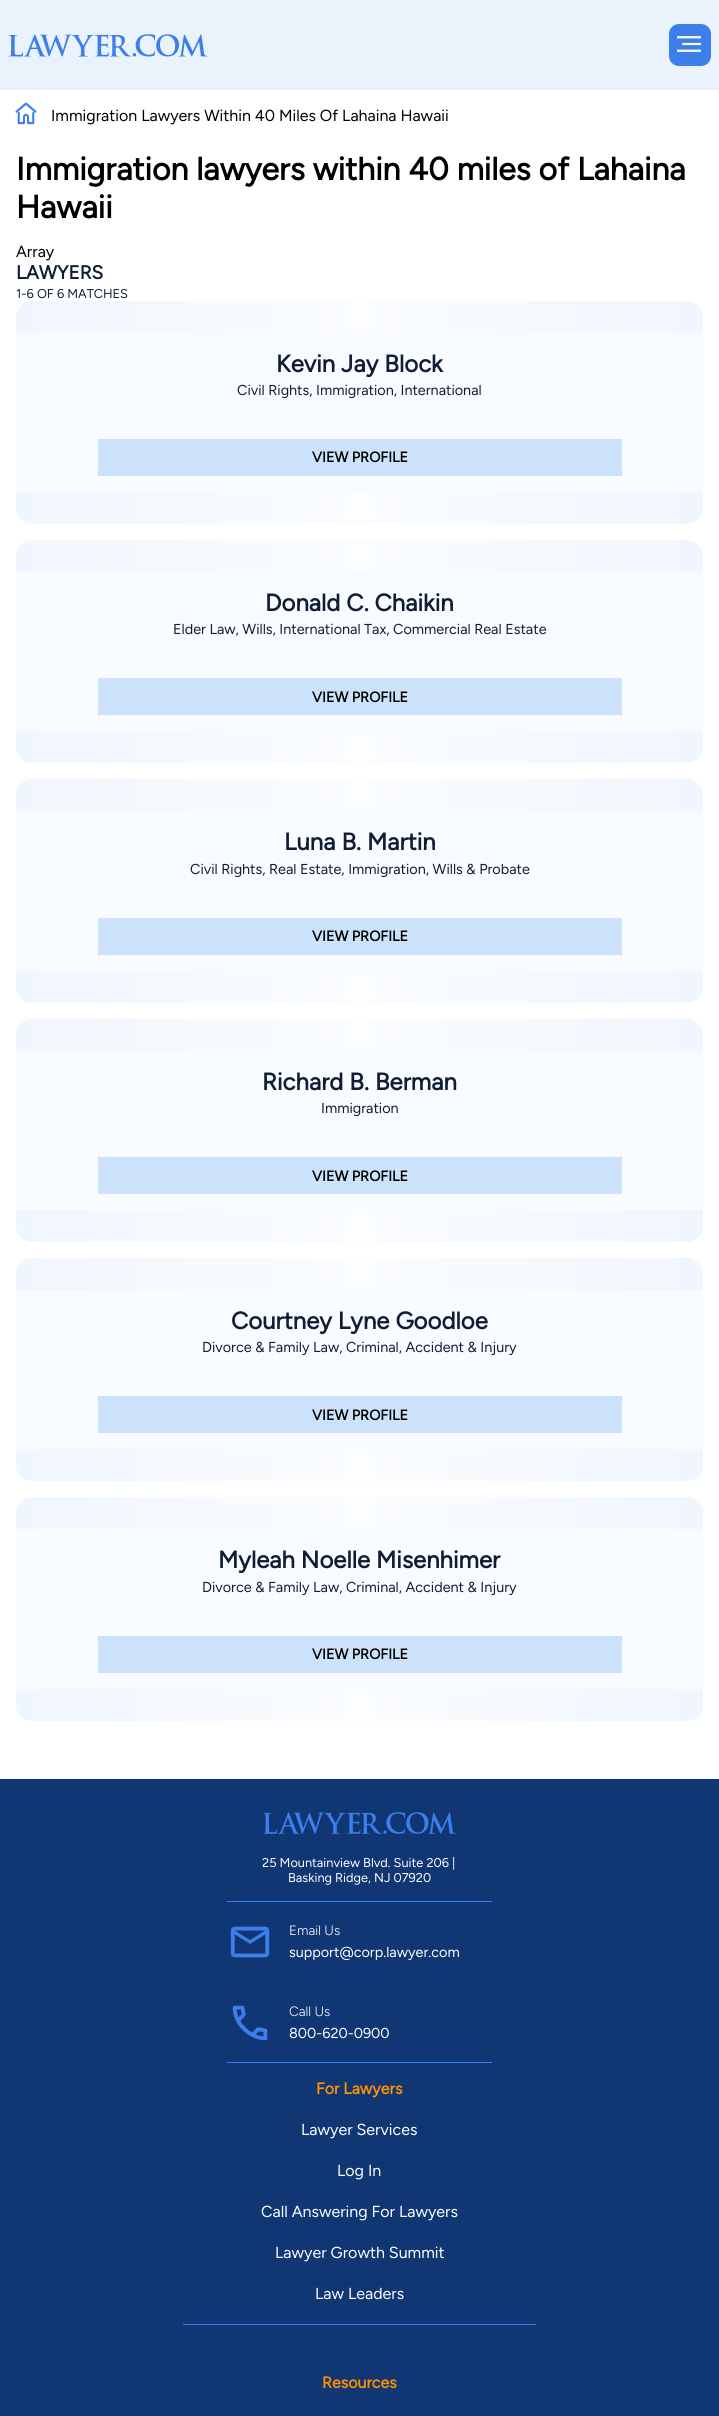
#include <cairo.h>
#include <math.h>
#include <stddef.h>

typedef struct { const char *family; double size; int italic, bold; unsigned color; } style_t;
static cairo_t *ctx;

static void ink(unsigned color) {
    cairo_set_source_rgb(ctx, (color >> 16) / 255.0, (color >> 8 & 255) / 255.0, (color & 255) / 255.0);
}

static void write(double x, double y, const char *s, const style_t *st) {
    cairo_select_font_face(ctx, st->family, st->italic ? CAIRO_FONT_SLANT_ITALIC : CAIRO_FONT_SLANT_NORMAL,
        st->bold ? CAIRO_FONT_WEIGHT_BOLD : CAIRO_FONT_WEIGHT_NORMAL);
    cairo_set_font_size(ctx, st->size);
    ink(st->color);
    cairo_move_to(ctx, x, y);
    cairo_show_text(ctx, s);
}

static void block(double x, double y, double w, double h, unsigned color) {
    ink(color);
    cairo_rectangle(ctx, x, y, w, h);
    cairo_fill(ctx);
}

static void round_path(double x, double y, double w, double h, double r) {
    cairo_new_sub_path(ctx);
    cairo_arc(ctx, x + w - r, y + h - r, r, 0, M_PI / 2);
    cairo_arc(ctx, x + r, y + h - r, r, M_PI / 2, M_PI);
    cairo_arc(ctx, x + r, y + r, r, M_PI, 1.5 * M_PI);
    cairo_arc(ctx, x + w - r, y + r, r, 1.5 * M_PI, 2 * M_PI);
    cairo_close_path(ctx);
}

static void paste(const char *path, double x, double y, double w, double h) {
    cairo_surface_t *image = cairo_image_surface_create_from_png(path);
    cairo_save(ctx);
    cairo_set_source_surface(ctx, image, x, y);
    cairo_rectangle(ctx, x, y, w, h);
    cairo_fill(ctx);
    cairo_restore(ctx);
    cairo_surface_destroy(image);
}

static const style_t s1 = {"Figtree", 16, 0, 0, 0x000000};
static const style_t s2 = {"Figtree", 32, 0, 1, 0x000000};
static const style_t s3 = {"Figtree", 19, 0, 1, 0x101d32};
static const style_t s4 = {"Figtree", 12.75, 0, 0, 0x101d32};
static const style_t s5 = {"Figtree", 24, 0, 1, 0x101d32};
static const style_t s6 = {"Figtree", 14.4, 0, 0, 0x101d32};
static const style_t s7 = {"Figtree", 14.4, 0, 1, 0x000000};
static const style_t s8 = {"Figtree", 12.75, 0, 0, 0xffffff};
static const style_t s9 = {"Figtree Light", 13.5, 0, 0, 0xffffff};
static const style_t s10 = {"Figtree", 14.4, 0, 0, 0xffffff};
static const style_t s11 = {"Figtree", 16, 0, 1, 0xff9000};
static const style_t s12 = {"Figtree", 16, 0, 0, 0xffffff};

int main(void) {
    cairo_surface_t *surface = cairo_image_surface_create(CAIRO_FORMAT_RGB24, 719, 2416);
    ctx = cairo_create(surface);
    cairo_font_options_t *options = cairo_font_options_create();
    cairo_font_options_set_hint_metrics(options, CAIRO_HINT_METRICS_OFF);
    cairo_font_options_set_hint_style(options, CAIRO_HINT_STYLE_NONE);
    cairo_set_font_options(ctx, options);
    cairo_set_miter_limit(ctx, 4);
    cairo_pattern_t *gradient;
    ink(0xffffff);
    cairo_paint(ctx);
    block(0, 0, 719, 90, 0xeaf2fb);
    paste("pic1.png", 8, 34, 200, 23);
    ink(0x3c7feb);
    round_path(669, 24, 42, 42, 10);
    cairo_fill(ctx);
    paste("pic2.png", 677, 36, 24, 16);
    paste("pic3.png", 15, 102, 22, 23);
    write(51, 121, "Immigration Lawyers Within 40 Miles Of Lahaina Hawaii", &s1);
    write(16, 180, "Immigration lawyers within 40 miles of Lahaina", &s2);
    write(16, 218, "Hawaii", &s2);
    write(16, 257, "Array", &s1);
    write(16, 279, "LAWYERS", &s3);
    write(16, 298, "1-6 OF 6 MATCHES", &s4);
    gradient = cairo_pattern_create_linear(16, 413, 703, 413);
    cairo_pattern_add_color_stop_rgba(gradient, 0, 0.941, 0.965, 0.992, 1);
    cairo_pattern_add_color_stop_rgba(gradient, 0.5, 0.984, 0.992, 1, 1);
    cairo_pattern_add_color_stop_rgba(gradient, 0.99, 0.941, 0.965, 0.992, 1);
    cairo_set_source(ctx, gradient);
    cairo_pattern_destroy(gradient);
    round_path(16, 301, 687, 223, 16);
    cairo_fill(ctx);
    block(16, 333, 687, 159, 0xf8fbff);
    write(276, 372, "Kevin Jay Block", &s5);
    write(237, 395, "Civil Rights, Immigration, International", &s6);
    block(98, 439, 524, 37, 0xcce1fa);
    write(312, 462, "VIEW PROFILE", &s7);
    gradient = cairo_pattern_create_linear(16, 652, 703, 652);
    cairo_pattern_add_color_stop_rgba(gradient, 0, 0.941, 0.965, 0.992, 1);
    cairo_pattern_add_color_stop_rgba(gradient, 0.5, 0.984, 0.992, 1, 1);
    cairo_pattern_add_color_stop_rgba(gradient, 0.99, 0.941, 0.965, 0.992, 1);
    cairo_set_source(ctx, gradient);
    cairo_pattern_destroy(gradient);
    round_path(16, 540, 687, 223, 16);
    cairo_fill(ctx);
    block(16, 572, 687, 159, 0xf8fbff);
    write(265, 611, "Donald C. Chaikin", &s5);
    write(173, 634, "Elder Law, Wills, International Tax, Commercial Real Estate", &s6);
    block(98, 678, 524, 37, 0xcce1fa);
    write(312, 702, "VIEW PROFILE", &s7);
    gradient = cairo_pattern_create_linear(16, 891, 703, 891);
    cairo_pattern_add_color_stop_rgba(gradient, 0, 0.941, 0.965, 0.992, 1);
    cairo_pattern_add_color_stop_rgba(gradient, 0.5, 0.984, 0.992, 1, 1);
    cairo_pattern_add_color_stop_rgba(gradient, 0.99, 0.941, 0.965, 0.992, 1);
    cairo_set_source(ctx, gradient);
    cairo_pattern_destroy(gradient);
    round_path(16, 779, 687, 224, 16);
    cairo_fill(ctx);
    block(16, 811, 687, 160, 0xf8fbff);
    write(284, 850, "Luna B. Martin", &s5);
    write(190, 874, "Civil Rights, Real Estate, Immigration, Wills & Probate", &s6);
    block(98, 918, 524, 37, 0xcce1fa);
    write(312, 941, "VIEW PROFILE", &s7);
    gradient = cairo_pattern_create_linear(16, 1131, 703, 1131);
    cairo_pattern_add_color_stop_rgba(gradient, 0, 0.941, 0.965, 0.992, 1);
    cairo_pattern_add_color_stop_rgba(gradient, 0.5, 0.984, 0.992, 1, 1);
    cairo_pattern_add_color_stop_rgba(gradient, 0.99, 0.941, 0.965, 0.992, 1);
    cairo_set_source(ctx, gradient);
    cairo_pattern_destroy(gradient);
    round_path(16, 1019, 687, 223, 16);
    cairo_fill(ctx);
    block(16, 1051, 687, 159, 0xf8fbff);
    write(262, 1090, "Richard B. Berman", &s5);
    write(321, 1113, "Immigration", &s6);
    block(98, 1157, 524, 37, 0xcce1fa);
    write(312, 1181, "VIEW PROFILE", &s7);
    gradient = cairo_pattern_create_linear(16, 1370, 703, 1370);
    cairo_pattern_add_color_stop_rgba(gradient, 0, 0.941, 0.965, 0.992, 1);
    cairo_pattern_add_color_stop_rgba(gradient, 0.5, 0.984, 0.992, 1, 1);
    cairo_pattern_add_color_stop_rgba(gradient, 0.99, 0.941, 0.965, 0.992, 1);
    cairo_set_source(ctx, gradient);
    cairo_pattern_destroy(gradient);
    round_path(16, 1258, 687, 223, 16);
    cairo_fill(ctx);
    block(16, 1290, 687, 159, 0xf8fbff);
    write(231, 1329, "Courtney Lyne Goodloe", &s5);
    write(202, 1352, "Divorce & Family Law, Criminal, Accident & Injury", &s6);
    block(98, 1396, 524, 37, 0xcce1fa);
    write(312, 1420, "VIEW PROFILE", &s7);
    gradient = cairo_pattern_create_linear(16, 1609, 703, 1609);
    cairo_pattern_add_color_stop_rgba(gradient, 0, 0.941, 0.965, 0.992, 1);
    cairo_pattern_add_color_stop_rgba(gradient, 0.5, 0.984, 0.992, 1, 1);
    cairo_pattern_add_color_stop_rgba(gradient, 0.99, 0.941, 0.965, 0.992, 1);
    cairo_set_source(ctx, gradient);
    cairo_pattern_destroy(gradient);
    round_path(16, 1497, 687, 224, 16);
    cairo_fill(ctx);
    block(16, 1529, 687, 160, 0xf8fbff);
    write(218, 1568, "Myleah Noelle Misenhimer", &s5);
    write(202, 1592, "Divorce & Family Law, Criminal, Accident & Injury", &s6);
    block(98, 1636, 524, 37, 0xcce1fa);
    write(312, 1659, "VIEW PROFILE", &s7);
    block(0, 1779, 719, 637, 0x103673);
    paste("pic4.png", 263, 1812, 193, 22);
    write(262, 1867, "25 Mountainview Blvd. Suite 206 |", &s8);
    write(288, 1882, "Basking Ridge, NJ 07920", &s8);
    block(227, 1901, 265, 1, 0x3c7feb);
    paste("pic5.png", 230, 1926, 40, 32);
    write(289, 1935, "Email Us", &s9);
    write(289, 1957, "support@corp.lawyer.com", &s10);
    paste("pic6.png", 232, 2005, 36, 36);
    write(289, 2016, "Call Us", &s9);
    write(289, 2038, "800-620-0900", &s10);
    block(227, 2062, 265, 1, 0x3c7feb);
    write(316, 2094, "For Lawyers", &s11);
    write(301, 2135, "Lawyer Services", &s12);
    write(337, 2176, "Log In", &s12);
    write(261, 2217, "Call Answering For Lawyers", &s12);
    write(275, 2258, "Lawyer Growth Summit", &s12);
    write(315, 2299, "Law Leaders", &s12);
    block(183, 2324, 353, 1, 0x3c7feb);
    write(322, 2388, "Resources", &s11);
    cairo_surface_write_to_png(surface, "screenshot.png");
    cairo_font_options_destroy(options);
    cairo_destroy(ctx);
    cairo_surface_destroy(surface);
    return 0;
}
